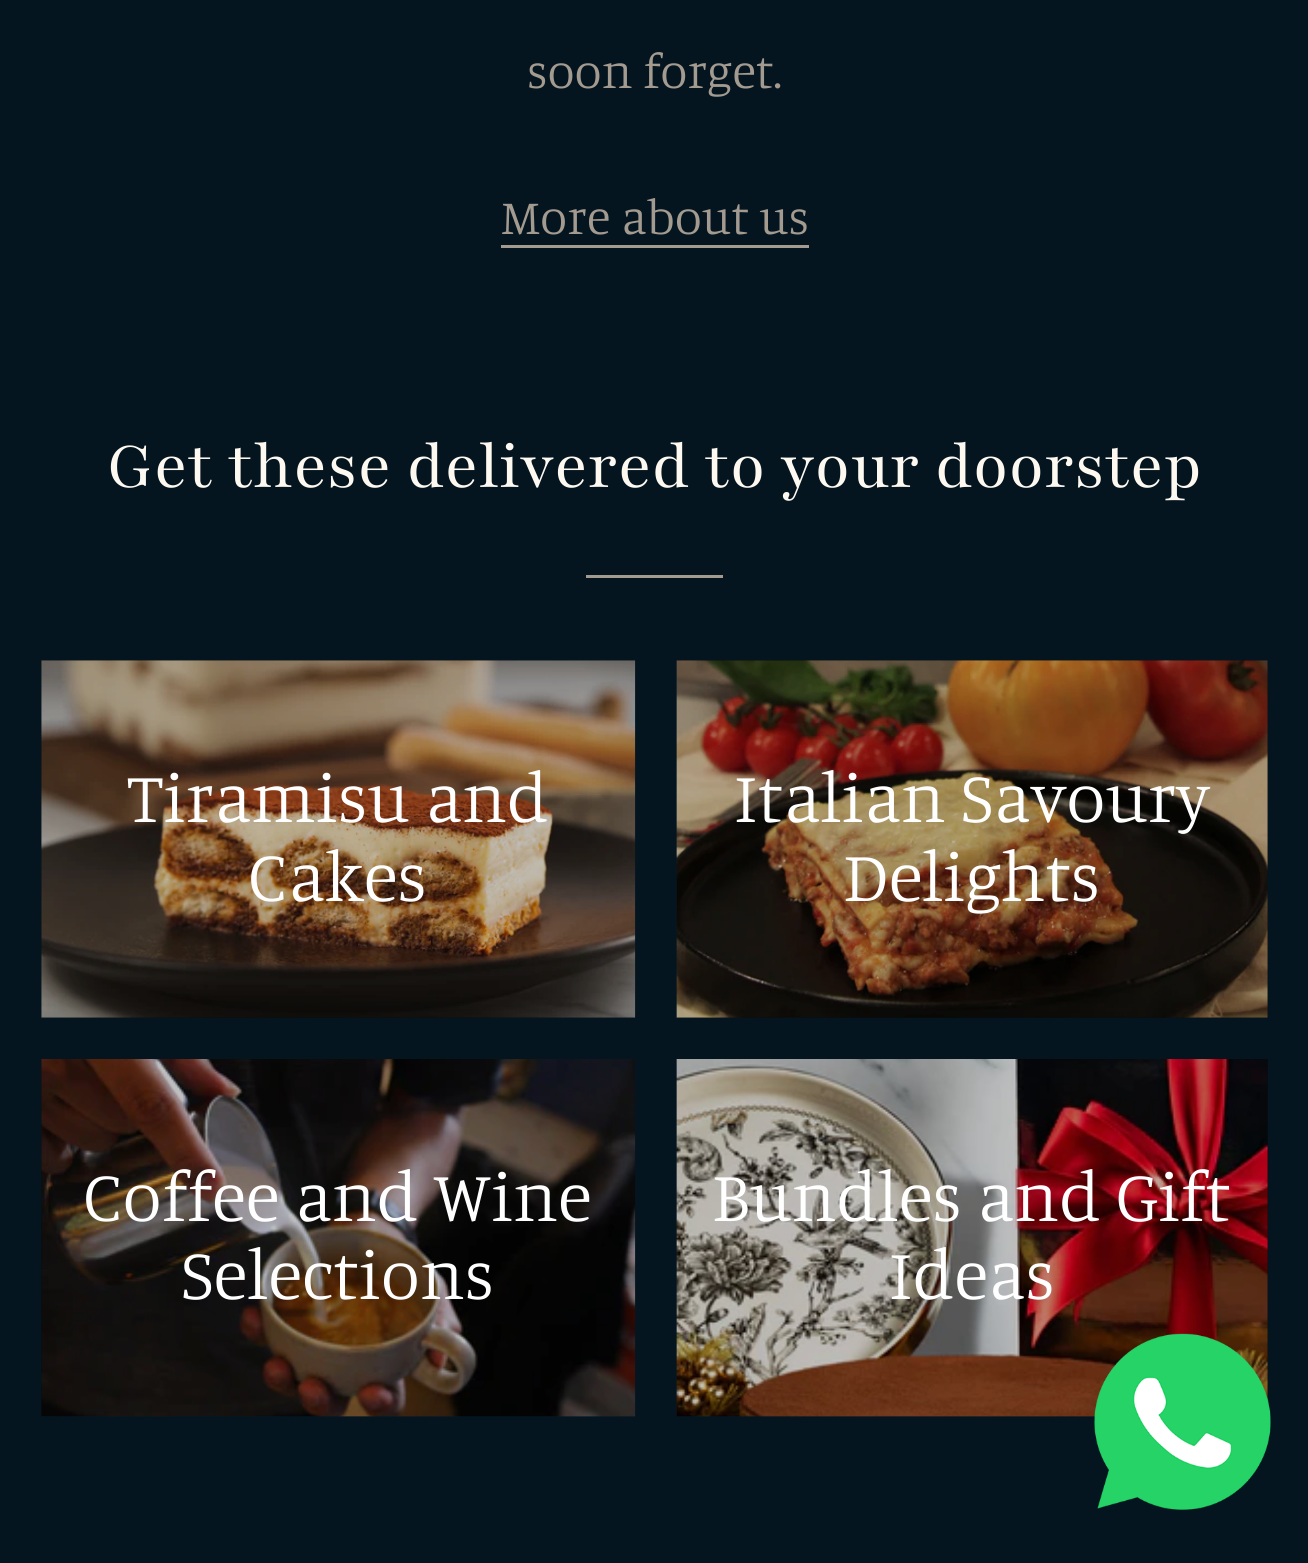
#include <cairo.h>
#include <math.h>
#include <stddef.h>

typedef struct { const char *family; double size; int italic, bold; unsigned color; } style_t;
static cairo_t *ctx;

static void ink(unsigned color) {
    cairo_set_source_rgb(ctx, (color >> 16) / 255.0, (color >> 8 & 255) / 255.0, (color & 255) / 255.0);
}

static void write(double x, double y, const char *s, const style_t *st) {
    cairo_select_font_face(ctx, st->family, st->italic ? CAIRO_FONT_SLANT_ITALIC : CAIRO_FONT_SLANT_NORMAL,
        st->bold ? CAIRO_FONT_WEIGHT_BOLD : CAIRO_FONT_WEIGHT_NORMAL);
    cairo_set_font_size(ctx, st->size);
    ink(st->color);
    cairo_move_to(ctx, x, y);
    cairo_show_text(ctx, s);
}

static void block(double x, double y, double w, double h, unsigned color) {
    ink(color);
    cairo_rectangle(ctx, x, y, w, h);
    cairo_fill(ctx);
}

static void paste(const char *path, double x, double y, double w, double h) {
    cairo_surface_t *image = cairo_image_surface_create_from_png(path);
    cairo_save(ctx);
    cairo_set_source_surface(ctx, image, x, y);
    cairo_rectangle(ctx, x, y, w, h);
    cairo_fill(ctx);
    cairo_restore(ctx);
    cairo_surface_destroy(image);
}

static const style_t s1 = {"Manuale Light", 49.5, 0, 0, 0xa39a90};
static const style_t s2 = {"Playfair", 71.5, 0, 0, 0xfdf9f1};
static const style_t s3 = {"Manuale Light", 71.5, 0, 0, 0xffffff};

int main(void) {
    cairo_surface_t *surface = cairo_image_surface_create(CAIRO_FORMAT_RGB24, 1308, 1563);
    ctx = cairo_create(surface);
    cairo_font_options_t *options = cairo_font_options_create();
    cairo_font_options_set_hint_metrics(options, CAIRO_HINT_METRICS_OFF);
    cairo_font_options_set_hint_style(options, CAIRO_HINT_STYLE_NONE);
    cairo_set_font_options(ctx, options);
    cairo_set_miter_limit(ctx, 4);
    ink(0x041520);
    cairo_paint(ctx);
    block(1267, 1059, 1, 344, 0x031018);
    block(41, 1059, 1, 357, 0x031018);
    block(677, 660, 591, 358, 0x031018);
    block(41, 660, 594, 358, 0x031018);
    write(527, 88, "soon forget.", &s1);
    write(501, 234, "More about us", &s1);
    block(501, 245, 308, 3, 0xa39a90);
    write(107, 487, "Get these delivered to your doorstep", &s2);
    block(586, 575, 137, 3, 0xa39a90);
    paste("pic1.png", 41, 660, 595, 358);
    write(127, 822, "Tiramisu and", &s3);
    write(248, 901, "Cakes", &s3);
    paste("pic2.png", 676, 660, 592, 358);
    write(734, 822, "Italian Savoury", &s3);
    write(843, 901, "Delights", &s3);
    paste("pic3.png", 41, 1059, 595, 358);
    write(83, 1221, "Coffee and Wine", &s3);
    write(181, 1299, "Selections", &s3);
    paste("pic4.png", 676, 1059, 592, 358);
    write(712, 1221, "Bundles and Gift", &s3);
    write(889, 1299, "Ideas", &s3);
    paste("pic5.png", 1094, 1333, 177, 177);
    cairo_surface_write_to_png(surface, "screenshot.png");
    cairo_font_options_destroy(options);
    cairo_destroy(ctx);
    cairo_surface_destroy(surface);
    return 0;
}
